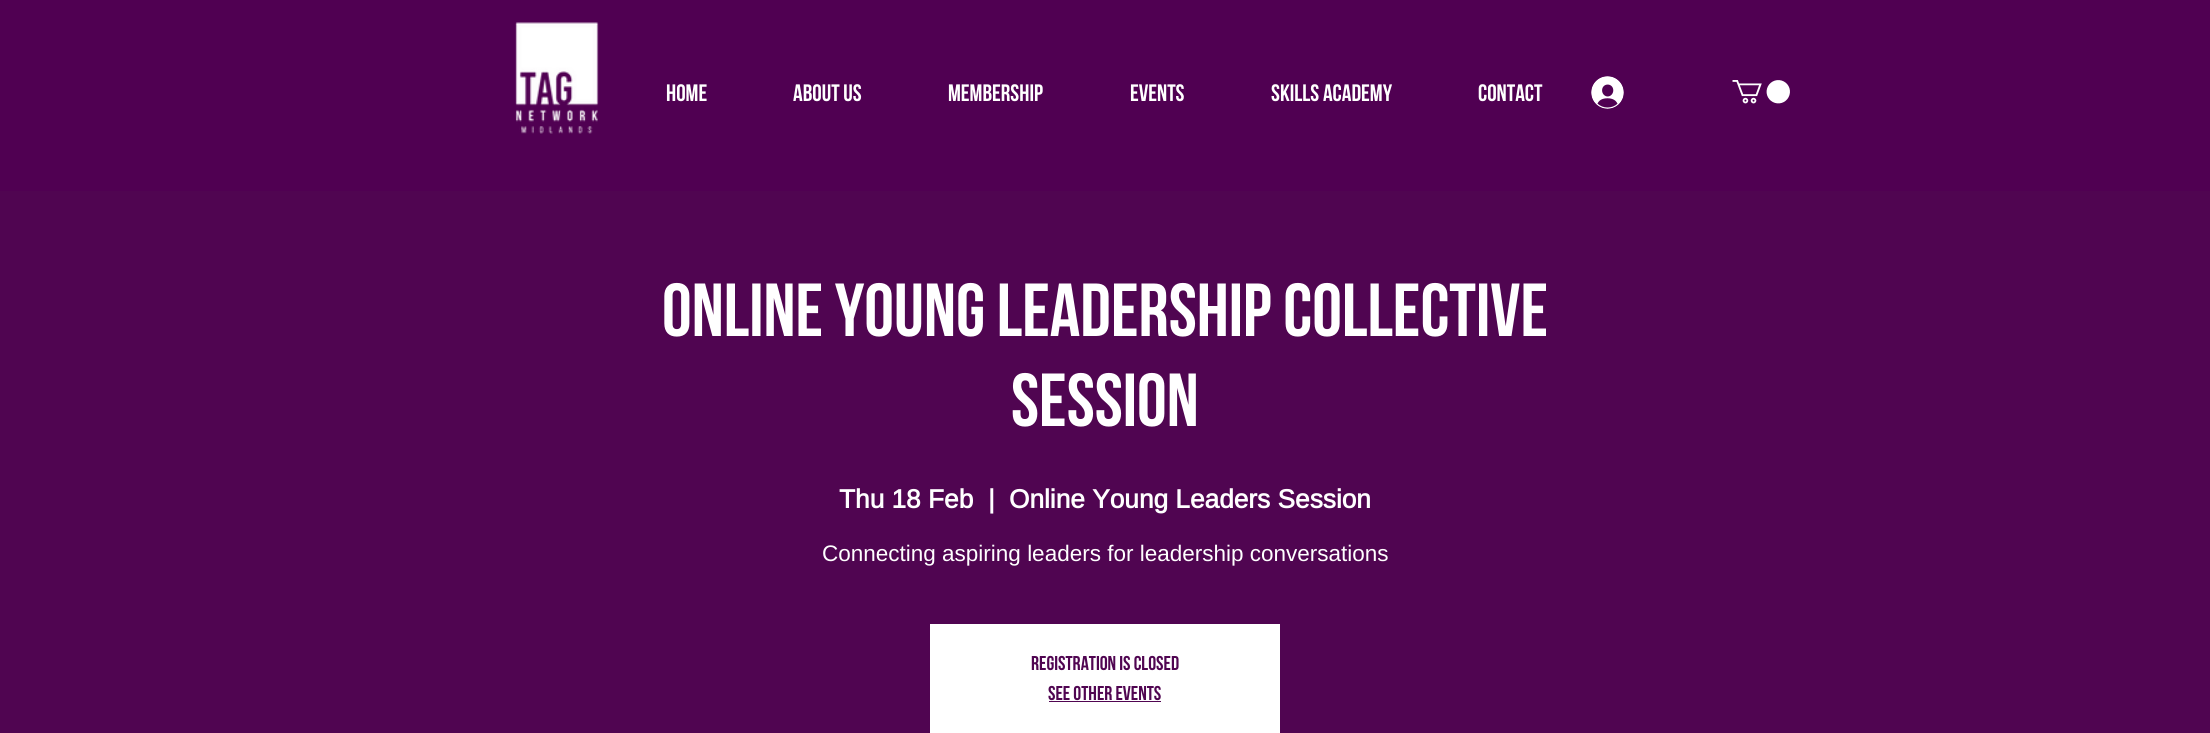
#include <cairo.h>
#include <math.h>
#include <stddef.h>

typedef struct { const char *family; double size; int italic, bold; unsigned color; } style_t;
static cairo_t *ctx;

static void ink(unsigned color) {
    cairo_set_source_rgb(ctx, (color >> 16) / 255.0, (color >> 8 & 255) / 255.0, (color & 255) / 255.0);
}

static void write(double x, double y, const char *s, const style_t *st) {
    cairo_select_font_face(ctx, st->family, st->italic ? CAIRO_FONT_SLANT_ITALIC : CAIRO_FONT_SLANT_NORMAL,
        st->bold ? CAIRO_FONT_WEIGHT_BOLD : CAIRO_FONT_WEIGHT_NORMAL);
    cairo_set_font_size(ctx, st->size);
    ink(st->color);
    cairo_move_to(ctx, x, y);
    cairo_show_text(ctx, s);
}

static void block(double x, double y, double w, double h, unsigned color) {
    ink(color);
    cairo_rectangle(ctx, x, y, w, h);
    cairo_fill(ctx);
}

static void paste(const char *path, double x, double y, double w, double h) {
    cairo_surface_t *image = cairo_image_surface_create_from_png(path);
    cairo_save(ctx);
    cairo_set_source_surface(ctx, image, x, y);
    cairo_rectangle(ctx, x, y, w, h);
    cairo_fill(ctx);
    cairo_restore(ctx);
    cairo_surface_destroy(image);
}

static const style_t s1 = {"Bebas Neue", 23.75, 0, 1, 0xffffff};
static const style_t s2 = {"Bebas Neue", 75, 0, 1, 0xffffff};
static const style_t s3 = {"Arimo", 26.25, 0, 1, 0xffffff};
static const style_t s4 = {"Arimo", 22.5, 0, 0, 0xffffff};
static const style_t s5 = {"Bebas Neue", 20, 0, 1, 0x500551};

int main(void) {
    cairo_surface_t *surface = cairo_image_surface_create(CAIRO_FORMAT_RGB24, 2210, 733);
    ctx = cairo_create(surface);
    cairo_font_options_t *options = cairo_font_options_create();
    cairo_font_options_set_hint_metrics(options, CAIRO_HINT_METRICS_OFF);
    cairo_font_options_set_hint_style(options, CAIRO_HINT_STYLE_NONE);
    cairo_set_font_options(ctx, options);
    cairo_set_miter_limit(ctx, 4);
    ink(0x500052);
    cairo_paint(ctx);
    paste("pic1.png", 515, 22, 84, 112);
    write(666, 101, "Home", &s1);
    write(793, 101, "About Us", &s1);
    write(948, 101, "Membership", &s1);
    write(1130, 101, "Events", &s1);
    write(1271, 101, "Skills Academy", &s1);
    write(1478, 101, "Contact", &s1);
    paste("pic2.png", 1591, 76, 33, 33);
    paste("pic3.png", 1732, 80, 58, 24);
    block(0, 191, 2210, 542, 0x500551);
    write(662, 336, "ONLINE YOUNG LEADERSHIP COLLECTIVE", &s2);
    write(1011, 426, "SESSION", &s2);
    write(839, 508, "Thu 18 Feb", &s3);
    write(988, 508, "|", &s3);
    write(1009, 508, "Online Young Leaders Session", &s3);
    write(822, 561, "Connecting aspiring leaders for leadership conversations", &s4);
    block(930, 624, 350, 109, 0xffffff);
    write(1031, 670, "Registration is Closed", &s5);
    write(1048, 700, "See other events", &s5);
    block(1049, 701, 112, 1, 0x500551);
    cairo_surface_write_to_png(surface, "screenshot.png");
    cairo_font_options_destroy(options);
    cairo_destroy(ctx);
    cairo_surface_destroy(surface);
    return 0;
}
